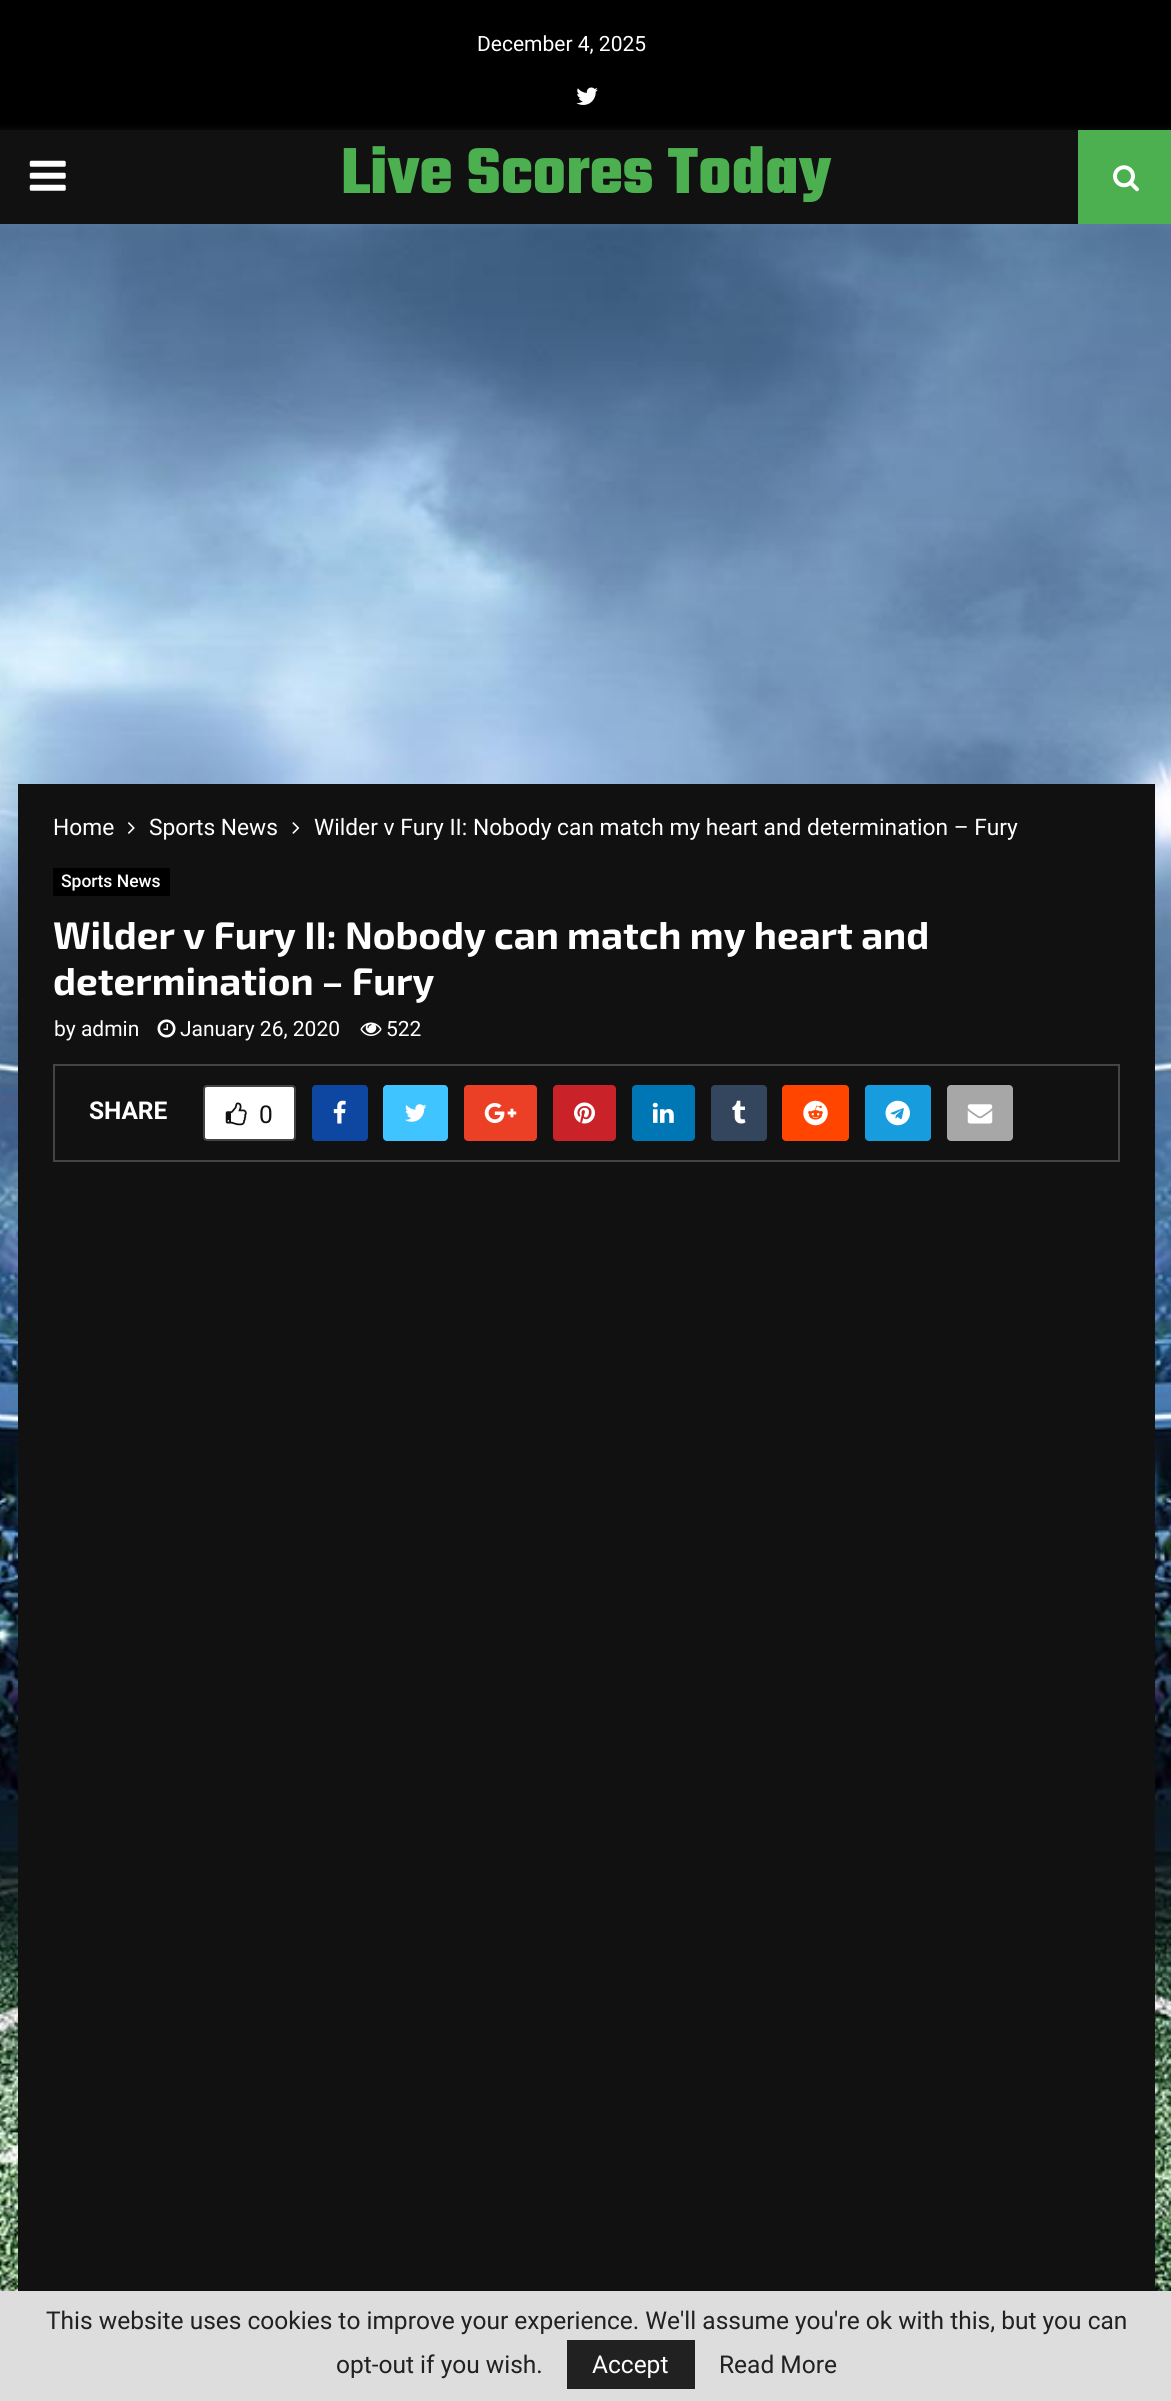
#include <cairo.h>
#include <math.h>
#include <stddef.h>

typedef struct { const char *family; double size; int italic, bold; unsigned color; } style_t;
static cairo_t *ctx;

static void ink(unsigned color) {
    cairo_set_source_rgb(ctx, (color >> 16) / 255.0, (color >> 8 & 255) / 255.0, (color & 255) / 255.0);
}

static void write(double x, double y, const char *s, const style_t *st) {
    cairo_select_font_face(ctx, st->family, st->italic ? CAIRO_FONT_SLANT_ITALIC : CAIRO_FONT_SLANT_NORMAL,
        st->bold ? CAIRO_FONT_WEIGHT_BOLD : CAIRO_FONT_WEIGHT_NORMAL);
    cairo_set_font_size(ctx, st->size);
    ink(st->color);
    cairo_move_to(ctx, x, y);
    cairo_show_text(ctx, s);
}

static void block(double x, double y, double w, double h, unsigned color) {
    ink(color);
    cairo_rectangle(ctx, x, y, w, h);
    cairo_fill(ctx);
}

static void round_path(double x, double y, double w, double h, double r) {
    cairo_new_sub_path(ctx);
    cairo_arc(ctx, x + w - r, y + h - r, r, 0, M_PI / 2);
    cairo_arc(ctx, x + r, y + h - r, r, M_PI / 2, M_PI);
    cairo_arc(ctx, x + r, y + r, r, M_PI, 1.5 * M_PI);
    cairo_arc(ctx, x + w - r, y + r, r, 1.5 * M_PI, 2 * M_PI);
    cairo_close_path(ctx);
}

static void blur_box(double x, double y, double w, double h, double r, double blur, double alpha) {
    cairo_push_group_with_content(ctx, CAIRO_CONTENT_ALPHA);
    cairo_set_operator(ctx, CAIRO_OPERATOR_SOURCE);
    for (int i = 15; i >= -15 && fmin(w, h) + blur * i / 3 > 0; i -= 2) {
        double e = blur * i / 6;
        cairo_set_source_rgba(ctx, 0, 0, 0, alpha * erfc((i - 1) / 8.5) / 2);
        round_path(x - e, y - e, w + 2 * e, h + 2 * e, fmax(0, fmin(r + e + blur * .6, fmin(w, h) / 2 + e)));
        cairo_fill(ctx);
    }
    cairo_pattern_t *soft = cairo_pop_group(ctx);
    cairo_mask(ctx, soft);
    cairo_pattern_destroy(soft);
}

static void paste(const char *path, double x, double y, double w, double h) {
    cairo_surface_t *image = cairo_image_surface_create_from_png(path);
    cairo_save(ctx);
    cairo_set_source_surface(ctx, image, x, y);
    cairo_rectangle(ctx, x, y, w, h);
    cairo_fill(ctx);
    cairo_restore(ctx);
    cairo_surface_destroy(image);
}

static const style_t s1 = {"Roboto", 21, 0, 0, 0xffffff};
static const style_t s2 = {"Teko", 70, 0, 1, 0x4caf50};
static const style_t s3 = {"Roboto", 22.75, 0, 0, 0xffffff};
static const style_t s4 = {"Roboto Medium", 17.5, 0, 0, 0xffffff};
static const style_t s5 = {"Exo 2", 38.5, 0, 1, 0xffffff};
static const style_t s6 = {"Roboto", 24.5, 0, 1, 0xffffff};
static const style_t s7 = {"Roboto", 24.5, 0, 0, 0x111111};
static const style_t s8 = {"Roboto", 24.5, 0, 0, 0x212121};
static const style_t s9 = {"Roboto", 24.5, 0, 0, 0xffffff};

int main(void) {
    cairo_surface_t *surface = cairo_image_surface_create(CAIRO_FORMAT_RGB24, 1171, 2401);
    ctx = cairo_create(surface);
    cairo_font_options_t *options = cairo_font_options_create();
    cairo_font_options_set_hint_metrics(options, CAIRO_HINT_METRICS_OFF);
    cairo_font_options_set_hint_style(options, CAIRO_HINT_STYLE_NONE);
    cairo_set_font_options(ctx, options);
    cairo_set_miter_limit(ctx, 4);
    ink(0xffffff);
    cairo_paint(ctx);
    paste("pic1.png", 0, 224, 1171, 2067);
    block(0, 0, 1171, 130, 0x000000);
    write(477, 51, "December 4, 2025", &s1);
    paste("pic2.png", 576, 87, 22, 18);
    ink(0xffffff);
    blur_box(0, 131, 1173, 95, 0, 4.5, 0.08);
    block(0, 130, 1078, 94, 0x111111);
    paste("pic3.png", 29, 160, 37, 31);
    write(341, 193, "Live Scores Today", &s2);
    block(1078, 130, 93, 94, 0x4caf50);
    paste("pic4.png", 1113, 165, 26, 27);
    block(18, 784, 1137, 1507, 0x111111);
    write(53, 835, "Home", &s3);
    paste("pic5.png", 128, 822, 7, 12);
    write(149, 835, "Sports News", &s3);
    paste("pic6.png", 292, 822, 8, 12);
    write(314, 835, "Wilder v Fury II: Nobody can match my heart and determination – Fury", &s3);
    block(53, 868, 117, 28, 0x000000);
    write(61, 887, "Sports News", &s4);
    write(53, 949, "Wilder v Fury II: Nobody can match my heart and", &s5);
    write(53, 995, "determination – Fury", &s5);
    write(54, 1036, "by admin", &s1);
    paste("pic7.png", 157, 1019, 19, 19);
    write(180, 1036, "January 26, 2020", &s1);
    paste("pic8.png", 360, 1022, 22, 14);
    write(386, 1036, "522", &s1);
    cairo_rectangle(ctx, 54, 1065, 1065, 96);
    ink(0x444444);
    cairo_stroke(ctx);
    write(89, 1119, "SHARE", &s6);
    round_path(204, 1086, 91, 54, 3);
    cairo_fill_preserve(ctx);
    ink(0x444444);
    cairo_stroke(ctx);
    paste("pic9.png", 225, 1102, 22, 24);
    write(259, 1123, "0", &s7);
    ink(0x0d47a1);
    round_path(312, 1085, 56, 56, 4);
    cairo_fill(ctx);
    paste("pic10.png", 333, 1100, 13, 24);
    ink(0x40c4ff);
    round_path(383, 1085, 65, 56, 4);
    cairo_fill(ctx);
    paste("pic11.png", 405, 1104, 22, 18);
    ink(0xeb4026);
    round_path(464, 1085, 73, 56, 4);
    cairo_fill(ctx);
    paste("pic12.png", 484, 1103, 33, 20);
    ink(0xc92228);
    round_path(553, 1085, 63, 56, 4);
    cairo_fill(ctx);
    paste("pic13.png", 574, 1102, 21, 22);
    ink(0x0077b5);
    round_path(632, 1085, 63, 56, 4);
    cairo_fill(ctx);
    paste("pic14.png", 652, 1102, 22, 21);
    ink(0x34465d);
    round_path(711, 1085, 56, 56, 4);
    cairo_fill(ctx);
    paste("pic15.png", 732, 1100, 14, 24);
    ink(0xff4500);
    round_path(782, 1085, 67, 56, 4);
    cairo_fill(ctx);
    paste("pic16.png", 803, 1100, 25, 26);
    ink(0x179cde);
    round_path(865, 1085, 66, 56, 4);
    cairo_fill(ctx);
    paste("pic17.png", 885, 1100, 25, 26);
    ink(0xa7a7a7);
    round_path(947, 1085, 66, 56, 4);
    cairo_fill(ctx);
    paste("pic18.png", 967, 1104, 26, 20);
    block(0, 2291, 1171, 110, 0xdddddd);
    write(46, 2329, "This website uses cookies to improve your experience. We'll assume you're ok with this, but you can", &s8);
    write(336, 2373, "opt-out if you wish.", &s8);
    block(567, 2340, 128, 49, 0x212121);
    write(592, 2373, "Accept", &s9);
    write(719, 2373, "Read More", &s8);
    cairo_surface_write_to_png(surface, "screenshot.png");
    cairo_font_options_destroy(options);
    cairo_destroy(ctx);
    cairo_surface_destroy(surface);
    return 0;
}
